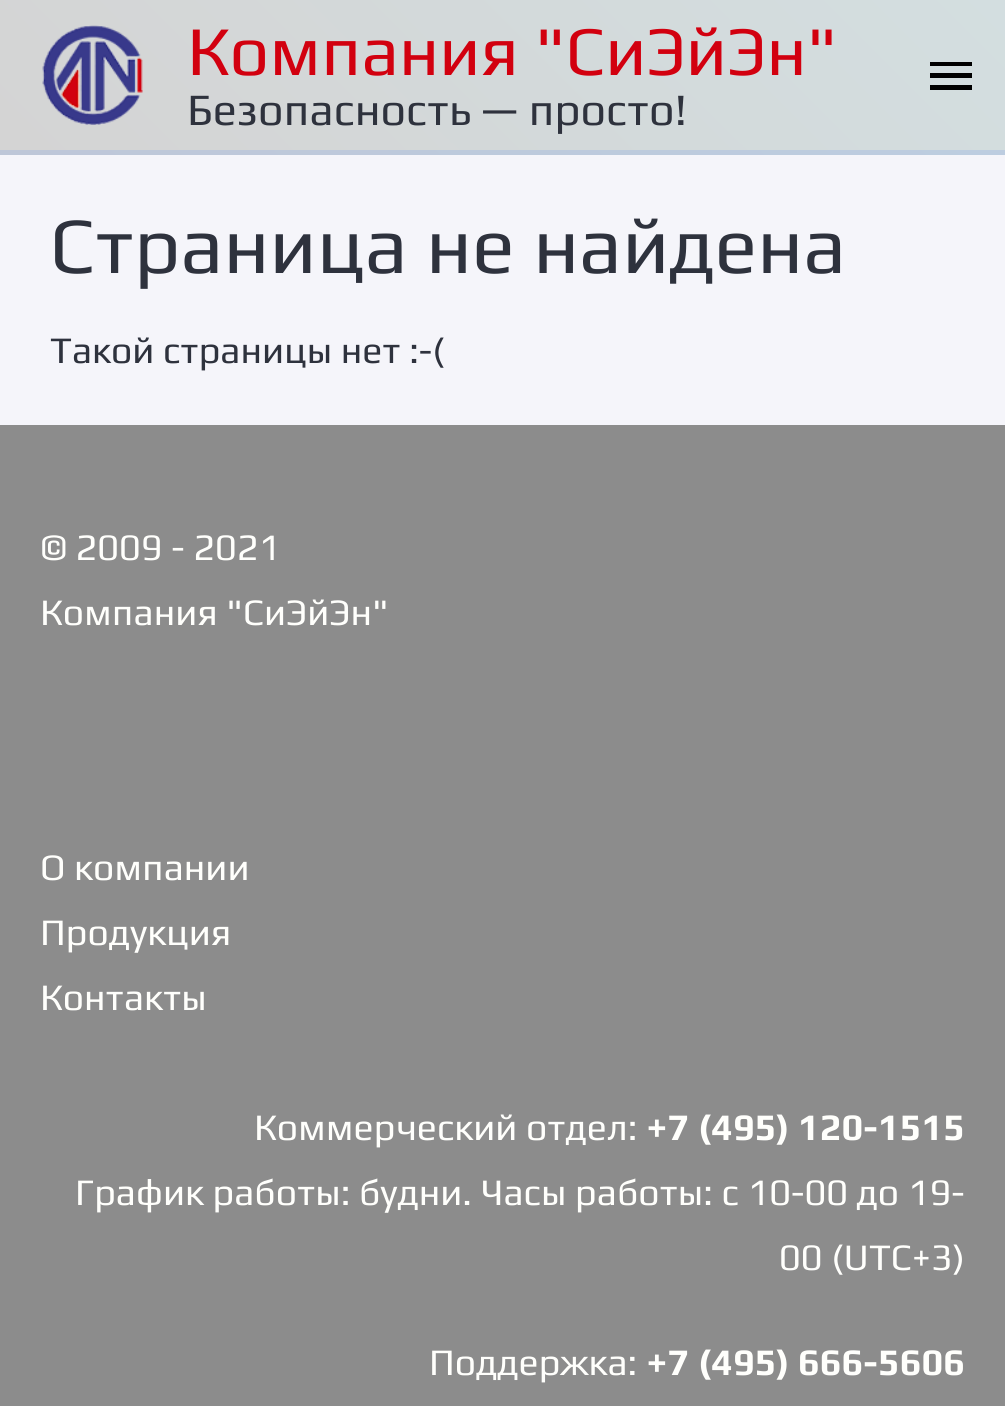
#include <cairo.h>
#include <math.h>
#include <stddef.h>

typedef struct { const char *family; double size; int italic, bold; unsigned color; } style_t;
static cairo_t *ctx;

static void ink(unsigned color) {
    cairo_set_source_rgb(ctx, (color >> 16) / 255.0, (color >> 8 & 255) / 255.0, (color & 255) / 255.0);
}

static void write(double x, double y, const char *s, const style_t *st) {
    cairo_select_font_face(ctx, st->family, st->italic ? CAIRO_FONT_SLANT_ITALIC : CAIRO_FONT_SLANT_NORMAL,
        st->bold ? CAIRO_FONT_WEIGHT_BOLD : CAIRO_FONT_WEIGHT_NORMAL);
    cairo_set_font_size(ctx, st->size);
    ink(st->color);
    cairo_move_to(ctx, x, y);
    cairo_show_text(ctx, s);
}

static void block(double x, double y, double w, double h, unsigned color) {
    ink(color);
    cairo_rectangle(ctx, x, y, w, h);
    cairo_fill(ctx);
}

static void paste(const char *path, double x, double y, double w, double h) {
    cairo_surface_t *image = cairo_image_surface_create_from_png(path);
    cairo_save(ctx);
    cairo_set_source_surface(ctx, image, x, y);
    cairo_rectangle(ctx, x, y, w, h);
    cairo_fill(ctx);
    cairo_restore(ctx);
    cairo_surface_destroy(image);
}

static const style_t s1 = {"Play", 70, 0, 0, 0xd2000f};
static const style_t s2 = {"Play", 45, 0, 0, 0x2e323d};
static const style_t s3 = {"Play", 80, 0, 0, 0x2e323d};
static const style_t s4 = {"Play", 37.5, 0, 0, 0x2e323d};
static const style_t s5 = {"Play", 37.5, 0, 0, 0xfffffc};
static const style_t s6 = {"Play", 37.5, 0, 1, 0xfffffc};

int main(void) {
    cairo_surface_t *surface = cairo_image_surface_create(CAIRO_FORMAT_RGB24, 1005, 1406);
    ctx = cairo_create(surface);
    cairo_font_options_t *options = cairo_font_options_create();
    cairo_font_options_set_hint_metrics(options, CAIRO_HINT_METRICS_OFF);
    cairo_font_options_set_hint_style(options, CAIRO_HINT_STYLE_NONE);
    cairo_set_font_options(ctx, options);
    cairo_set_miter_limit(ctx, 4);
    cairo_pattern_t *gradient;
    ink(0xf5f5fa);
    cairo_paint(ctx);
    gradient = cairo_pattern_create_linear(214, 364, 791, -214);
    cairo_pattern_add_color_stop_rgba(gradient, 0, 0.831, 0.831, 0.831, 1);
    cairo_pattern_add_color_stop_rgba(gradient, 1, 0.827, 0.871, 0.878, 1);
    cairo_set_source(ctx, gradient);
    cairo_pattern_destroy(gradient);
    cairo_rectangle(ctx, 0, 0, 1005, 150);
    cairo_fill(ctx);
    gradient = cairo_pattern_create_linear(214, 514, 791, -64);
    cairo_pattern_add_color_stop_rgba(gradient, 0, 0.745, 0.776, 0.843, 1);
    cairo_pattern_add_color_stop_rgba(gradient, 1, 0.741, 0.804, 0.878, 1);
    cairo_set_source(ctx, gradient);
    cairo_pattern_destroy(gradient);
    cairo_rectangle(ctx, 0, 150, 1005, 5);
    cairo_fill(ctx);
    paste("pic1.png", 42, 25, 101, 100);
    write(187, 75, "Компания \"СиЭйЭн\"", &s1);
    write(187, 125, "Безопасность — просто!", &s2);
    ink(0x000000);
    cairo_new_path(ctx);
    cairo_move_to(ctx, 930, 90);
    cairo_line_to(ctx, 972, 90);
    cairo_line_to(ctx, 972, 85);
    cairo_line_to(ctx, 930, 85);
    cairo_close_path(ctx);
    cairo_move_to(ctx, 930, 78);
    cairo_line_to(ctx, 972, 78);
    cairo_line_to(ctx, 972, 73);
    cairo_line_to(ctx, 930, 73);
    cairo_close_path(ctx);
    cairo_move_to(ctx, 930, 62);
    cairo_line_to(ctx, 930, 66);
    cairo_line_to(ctx, 972, 66);
    cairo_line_to(ctx, 972, 62);
    cairo_close_path(ctx);
    cairo_fill(ctx);
    write(50, 273, "Страница не найдена", &s3);
    write(50, 363, "Такой страницы нет :-(", &s4);
    block(0, 425, 1005, 981, 0x8c8c8c);
    write(40, 560, "© 2009 - 2021", &s5);
    write(40, 625, "Компания \"СиЭйЭн\"", &s5);
    write(40, 880, "О компании", &s5);
    write(40, 945, "Продукция", &s5);
    write(40, 1010, "Контакты", &s5);
    write(254, 1140, "Коммерческий отдел:", &s5);
    write(646, 1140, "+7 (495) 120-1515", &s6);
    write(75, 1205, "График работы: будни. Часы работы: с 10-00 до 19-", &s5);
    write(779, 1270, "00 (UTC+3)", &s5);
    write(429, 1375, "Поддержка:", &s5);
    write(646, 1375, "+7 (495) 666-5606", &s6);
    cairo_surface_write_to_png(surface, "screenshot.png");
    cairo_font_options_destroy(options);
    cairo_destroy(ctx);
    cairo_surface_destroy(surface);
    return 0;
}
